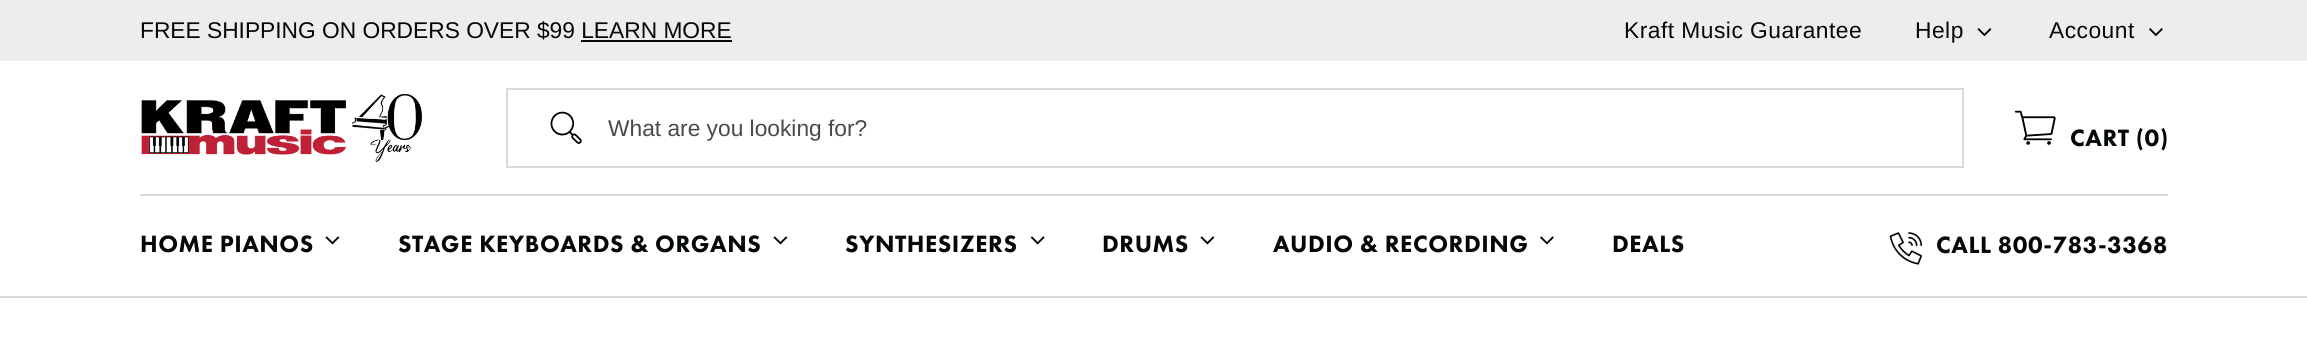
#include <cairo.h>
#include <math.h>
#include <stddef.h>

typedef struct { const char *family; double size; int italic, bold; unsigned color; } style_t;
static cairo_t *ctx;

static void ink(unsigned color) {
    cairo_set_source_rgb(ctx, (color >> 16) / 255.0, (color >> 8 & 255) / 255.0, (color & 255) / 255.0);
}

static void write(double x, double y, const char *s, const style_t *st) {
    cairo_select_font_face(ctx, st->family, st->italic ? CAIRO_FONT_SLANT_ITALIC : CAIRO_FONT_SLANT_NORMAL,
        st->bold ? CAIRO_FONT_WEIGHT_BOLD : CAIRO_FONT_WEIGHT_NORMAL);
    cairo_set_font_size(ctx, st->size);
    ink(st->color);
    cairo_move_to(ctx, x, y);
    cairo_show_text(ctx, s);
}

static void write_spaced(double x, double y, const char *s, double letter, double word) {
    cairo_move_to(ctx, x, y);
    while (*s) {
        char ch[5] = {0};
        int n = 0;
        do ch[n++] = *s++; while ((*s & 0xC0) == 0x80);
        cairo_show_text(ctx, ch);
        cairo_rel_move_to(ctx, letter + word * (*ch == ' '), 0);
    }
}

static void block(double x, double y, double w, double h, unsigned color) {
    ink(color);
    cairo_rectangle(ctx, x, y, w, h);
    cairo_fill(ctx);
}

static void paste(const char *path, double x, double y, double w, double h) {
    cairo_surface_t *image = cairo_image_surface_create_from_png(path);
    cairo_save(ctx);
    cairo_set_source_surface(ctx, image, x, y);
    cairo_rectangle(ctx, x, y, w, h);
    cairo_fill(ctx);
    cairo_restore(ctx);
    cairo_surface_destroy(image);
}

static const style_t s1 = {"Arimo", 22.75, 0, 0, 0x040807};
static const style_t s2 = {"Arimo", 22.75, 0, 0, 0x4a4a4a};

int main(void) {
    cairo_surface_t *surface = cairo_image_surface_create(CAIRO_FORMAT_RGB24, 2307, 359);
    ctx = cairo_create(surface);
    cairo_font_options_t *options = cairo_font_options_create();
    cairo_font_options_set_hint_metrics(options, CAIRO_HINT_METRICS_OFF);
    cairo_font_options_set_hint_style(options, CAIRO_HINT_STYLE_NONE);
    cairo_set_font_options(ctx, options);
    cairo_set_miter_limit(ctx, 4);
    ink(0xffffff);
    cairo_paint(ctx);
    block(0, 296, 2307, 2, 0xd9d9d9);
    block(0, 0, 2307, 61, 0xededed);
    write(140, 38, "FREE SHIPPING ON ORDERS OVER $99 LEARN MORE", &s1);
    block(581, 40, 151, 2, 0x040807);
    write_spaced(1624, 38, "Kraft Music Guarantee", 0.5, 0);
    write_spaced(1915, 38, "Help", 0.5, 0);
    paste("pic1.png", 1977, 28, 15, 9);
    write_spaced(2049, 38, "Account", 0.5, 0);
    paste("pic2.png", 2149, 28, 14, 9);
    paste("pic3.png", 141, 94, 281, 68);
    cairo_rectangle(ctx, 507, 89, 1456, 78);
    ink(0xd9d9d9);
    cairo_stroke(ctx);
    paste("pic4.png", 550, 111, 32, 33);
    write(608, 136, "What are you looking for?", &s2);
    paste("pic5.png", 2014, 110, 42, 35);
    cairo_select_font_face(ctx, "Futura PT", CAIRO_FONT_SLANT_NORMAL, CAIRO_FONT_WEIGHT_NORMAL);
    cairo_set_font_size(ctx, 24.5);
    ink(0x040807);
    write_spaced(2070, 146, "CART (0)", 0.5, 0);
    block(140, 194, 2028, 2, 0xd9d9d9);
    ink(0x040807);
    write_spaced(140, 252, "HOME PIANOS", 0.5, 0);
    paste("pic6.png", 325, 236, 15, 9);
    write_spaced(398, 252, "STAGE KEYBOARDS & ORGANS", 0.5, 0);
    paste("pic6.png", 773, 236, 15, 9);
    write_spaced(845, 252, "SYNTHESIZERS", 0.5, 0);
    paste("pic7.png", 1030, 236, 15, 9);
    write_spaced(1102, 252, "DRUMS", 0.5, 0);
    paste("pic6.png", 1200, 236, 15, 9);
    write_spaced(1273, 252, "AUDIO & RECORDING", 0.5, 0);
    paste("pic8.png", 1540, 236, 14, 9);
    write_spaced(1612, 252, "DEALS", 0.5, 0);
    paste("pic9.png", 1889, 232, 34, 33);
    write_spaced(1936, 253, "CALL 800-783-3368", 0.5, 0);
    cairo_surface_write_to_png(surface, "screenshot.png");
    cairo_font_options_destroy(options);
    cairo_destroy(ctx);
    cairo_surface_destroy(surface);
    return 0;
}
